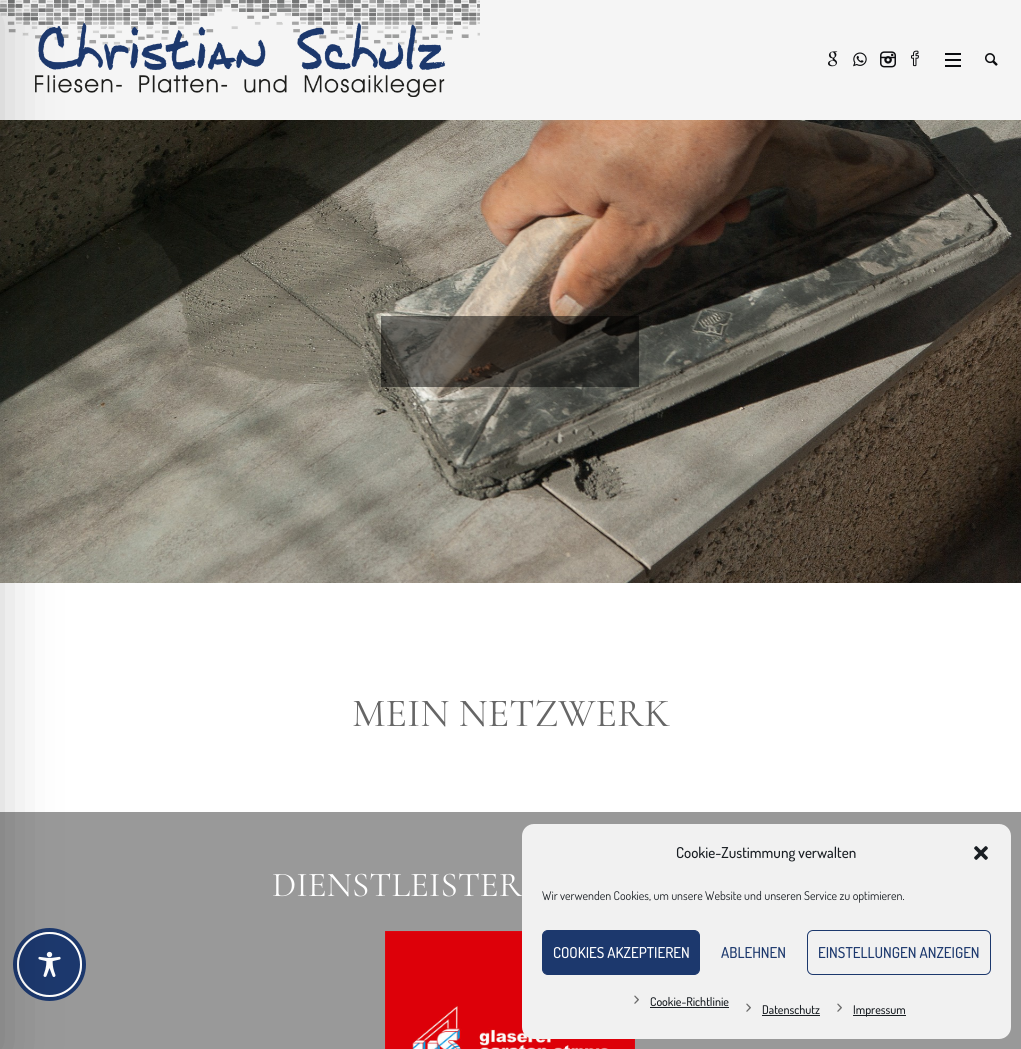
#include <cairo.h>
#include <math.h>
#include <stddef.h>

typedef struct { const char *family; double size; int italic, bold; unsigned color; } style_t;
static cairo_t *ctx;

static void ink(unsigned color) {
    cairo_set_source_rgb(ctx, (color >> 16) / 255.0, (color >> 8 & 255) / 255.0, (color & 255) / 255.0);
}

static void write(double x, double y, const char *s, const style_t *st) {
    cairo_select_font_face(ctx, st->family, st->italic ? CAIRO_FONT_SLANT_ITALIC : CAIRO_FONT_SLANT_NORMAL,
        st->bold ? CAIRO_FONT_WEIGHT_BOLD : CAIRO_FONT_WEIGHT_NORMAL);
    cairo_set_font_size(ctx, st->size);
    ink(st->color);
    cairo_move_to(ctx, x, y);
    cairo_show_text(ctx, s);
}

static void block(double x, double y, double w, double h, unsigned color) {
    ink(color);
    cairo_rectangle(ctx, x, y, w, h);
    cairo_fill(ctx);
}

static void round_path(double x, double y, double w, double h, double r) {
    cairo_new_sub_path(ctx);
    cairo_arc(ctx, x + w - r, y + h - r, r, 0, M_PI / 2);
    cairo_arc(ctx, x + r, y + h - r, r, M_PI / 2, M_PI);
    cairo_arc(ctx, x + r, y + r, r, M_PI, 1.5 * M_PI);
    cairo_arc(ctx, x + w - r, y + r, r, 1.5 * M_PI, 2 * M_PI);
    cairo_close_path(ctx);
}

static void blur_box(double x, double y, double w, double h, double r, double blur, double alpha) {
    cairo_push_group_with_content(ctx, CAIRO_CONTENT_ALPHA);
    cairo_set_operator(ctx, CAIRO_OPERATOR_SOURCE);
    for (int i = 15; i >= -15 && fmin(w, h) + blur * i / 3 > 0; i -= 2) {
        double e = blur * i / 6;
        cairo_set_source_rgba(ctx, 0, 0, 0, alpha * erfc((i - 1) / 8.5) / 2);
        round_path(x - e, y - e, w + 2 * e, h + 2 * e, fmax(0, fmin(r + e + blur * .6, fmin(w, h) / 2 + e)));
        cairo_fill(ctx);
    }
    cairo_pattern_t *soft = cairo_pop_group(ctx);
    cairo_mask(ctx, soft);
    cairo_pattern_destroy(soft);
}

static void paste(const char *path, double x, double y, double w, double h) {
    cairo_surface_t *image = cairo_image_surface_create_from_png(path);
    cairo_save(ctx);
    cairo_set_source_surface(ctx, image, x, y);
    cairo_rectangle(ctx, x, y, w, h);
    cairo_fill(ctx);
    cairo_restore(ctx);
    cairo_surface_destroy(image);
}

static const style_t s1 = {"Cormorant Light", 40, 0, 0, 0x666666};
static const style_t s2 = {"Cormorant Light", 35, 0, 0, 0xffffff};
static const style_t s3 = {"Dosis Medium", 15, 0, 0, 0x191e23};
static const style_t s4 = {"Dosis", 12, 0, 0, 0x191e23};
static const style_t s5 = {"Dosis Medium", 15, 0, 0, 0xffffff};
static const style_t s6 = {"Dosis Medium", 15, 0, 0, 0x1c386d};
static const style_t s7 = {"Dosis Medium", 12, 0, 0, 0x191e23};

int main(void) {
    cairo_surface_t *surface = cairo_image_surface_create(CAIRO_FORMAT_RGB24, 1021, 1049);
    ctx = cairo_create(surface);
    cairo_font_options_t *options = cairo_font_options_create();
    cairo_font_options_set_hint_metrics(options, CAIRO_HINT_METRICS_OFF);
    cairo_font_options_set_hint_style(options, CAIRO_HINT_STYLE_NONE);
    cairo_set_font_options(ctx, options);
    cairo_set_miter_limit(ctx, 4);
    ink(0xffffff);
    cairo_paint(ctx);
    block(0, 0, 1021, 120, 0xf5f5f5);
    paste("pic1.png", 0, 0, 480, 97);
    paste("pic7.png", 0, 120, 1021, 463);
    block(0, 812, 1021, 237, 0x999999);
    cairo_arc(ctx, 49.5, 964.5, 34.5, 0, 2 * M_PI);
    ink(0x1c386d);
    cairo_set_line_width(ctx, 4);
    cairo_stroke(ctx);
    cairo_arc(ctx, 49.5, 964.5, 31.5, 0, 2 * M_PI);
    cairo_fill_preserve(ctx);
    ink(0xffffff);
    cairo_set_line_width(ctx, 2);
    cairo_stroke(ctx);
    paste("pic9.png", 38, 951, 23, 26);
    ink(0x000000);
    blur_box(-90, 10, 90, 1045, 0, 30, 0.2);
    paste("pic2.png", 828, 51, 10, 16);
    paste("pic3.png", 853, 52, 14, 15);
    paste("pic4.png", 880, 51, 16, 17);
    paste("pic5.png", 911, 50, 8, 17);
    block(945, 53, 16, 2, 0x0b0c0f);
    block(945, 59, 16, 2, 0x0b0c0f);
    block(945, 65, 16, 2, 0x0b0c0f);
    paste("pic6.png", 985, 53, 13, 13);
    cairo_set_source_rgba(ctx, 0, 0, 0, 0.5);
    cairo_rectangle(ctx, 381, 316, 258, 71);
    cairo_fill(ctx);
    write(352, 726, "MEIN NETZWERK", &s1);
    write(272, 896, "DIENSTLEISTER", &s2);
    paste("pic8.png", 385, 931, 250, 118);
    ink(0xf1f1f1);
    round_path(522, 824, 489, 215, 12);
    cairo_fill(ctx);
    write(676, 858, "Cookie-Zustimmung verwalten", &s3);
    paste("pic10.png", 974, 846, 14, 14);
    write(542, 900, "Wir verwenden Cookies, um unsere Website und unseren Service zu optimieren.", &s4);
    ink(0x1c386d);
    round_path(542.5, 930.5, 157, 44, 5.5);
    cairo_fill_preserve(ctx);
    cairo_set_line_width(ctx, 1);
    cairo_stroke(ctx);
    write(553, 958, "COOKIES AKZEPTIEREN", &s5);
    write(721, 958, "ABLEHNEN", &s6);
    round_path(807.5, 930.5, 183, 44, 5.5);
    cairo_stroke(ctx);
    write(818, 958, "EINSTELLUNGEN ANZEIGEN", &s6);
    paste("pic11.png", 634, 995, 5, 9);
    write(650, 1006, "Cookie-Richtlinie", &s7);
    block(650, 1007, 79, 1, 0x191e23);
    paste("pic11.png", 746, 1003, 5, 9);
    write(762, 1014, "Datenschutz", &s7);
    block(762, 1015, 58, 1, 0x191e23);
    paste("pic11.png", 837, 1003, 5, 9);
    block(853, 1015, 53, 1, 0x191e23);
    write(853, 1014, "Impressum", &s7);
    cairo_surface_write_to_png(surface, "screenshot.png");
    cairo_font_options_destroy(options);
    cairo_destroy(ctx);
    cairo_surface_destroy(surface);
    return 0;
}
